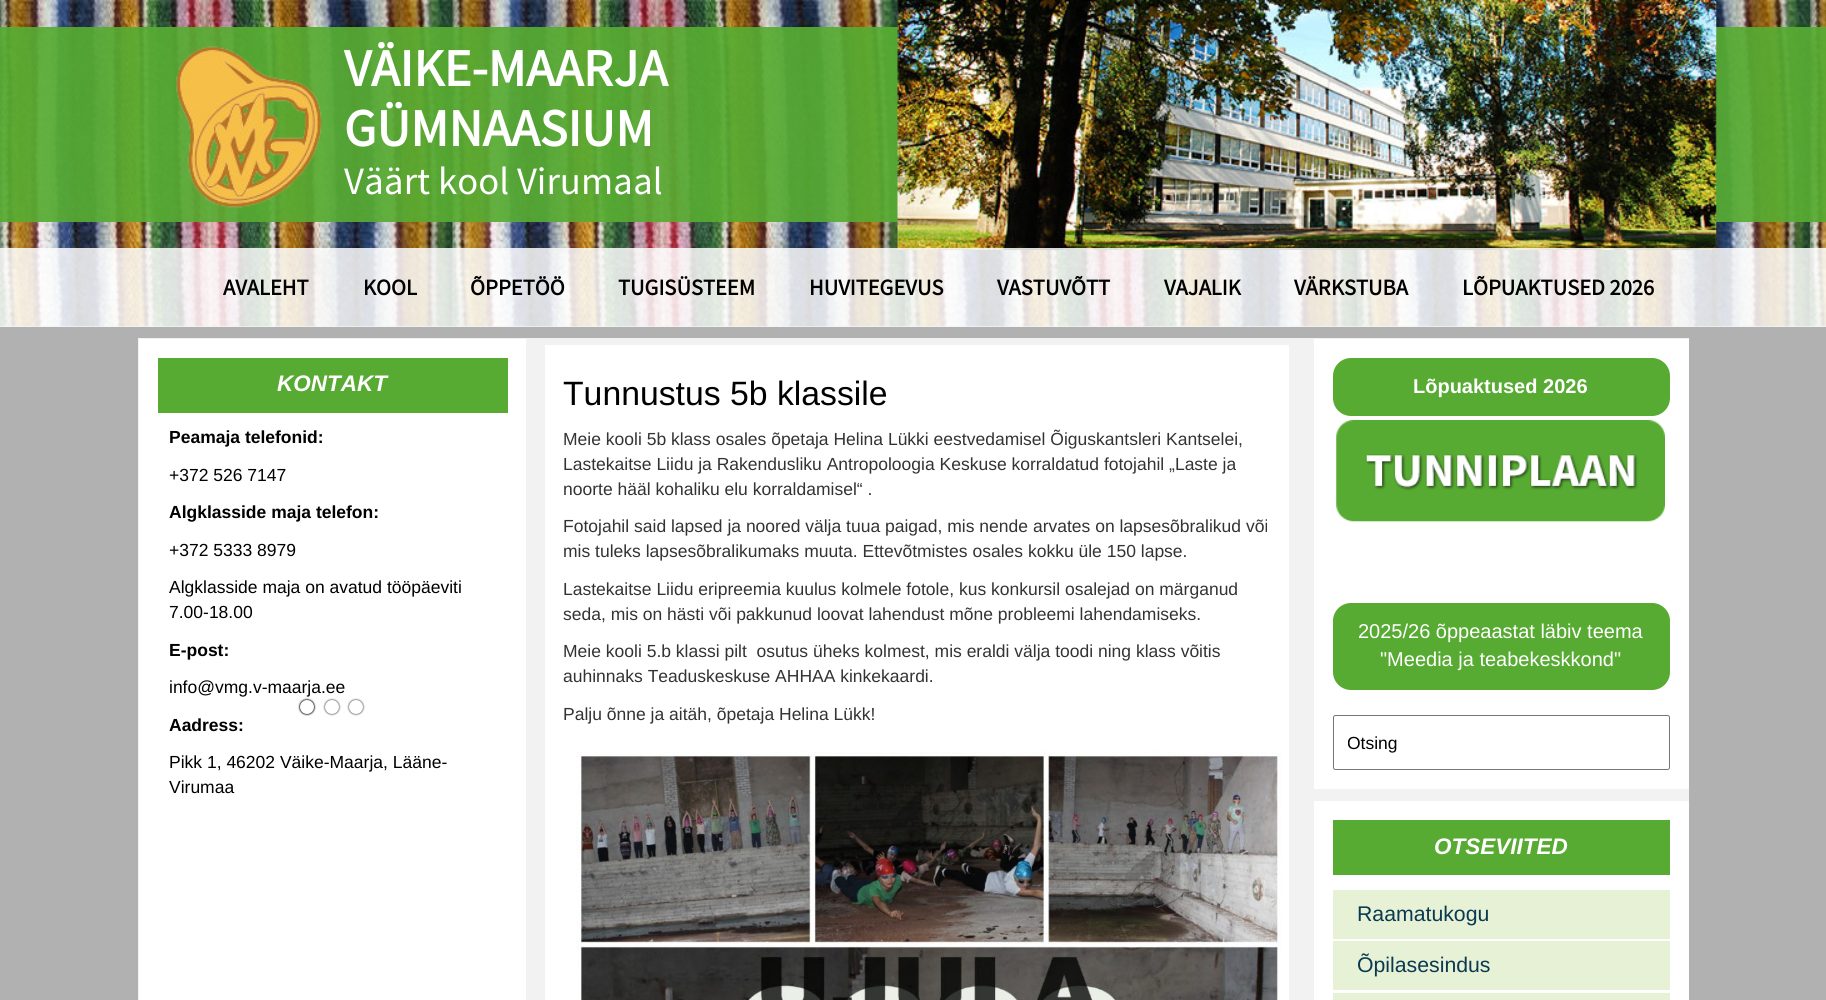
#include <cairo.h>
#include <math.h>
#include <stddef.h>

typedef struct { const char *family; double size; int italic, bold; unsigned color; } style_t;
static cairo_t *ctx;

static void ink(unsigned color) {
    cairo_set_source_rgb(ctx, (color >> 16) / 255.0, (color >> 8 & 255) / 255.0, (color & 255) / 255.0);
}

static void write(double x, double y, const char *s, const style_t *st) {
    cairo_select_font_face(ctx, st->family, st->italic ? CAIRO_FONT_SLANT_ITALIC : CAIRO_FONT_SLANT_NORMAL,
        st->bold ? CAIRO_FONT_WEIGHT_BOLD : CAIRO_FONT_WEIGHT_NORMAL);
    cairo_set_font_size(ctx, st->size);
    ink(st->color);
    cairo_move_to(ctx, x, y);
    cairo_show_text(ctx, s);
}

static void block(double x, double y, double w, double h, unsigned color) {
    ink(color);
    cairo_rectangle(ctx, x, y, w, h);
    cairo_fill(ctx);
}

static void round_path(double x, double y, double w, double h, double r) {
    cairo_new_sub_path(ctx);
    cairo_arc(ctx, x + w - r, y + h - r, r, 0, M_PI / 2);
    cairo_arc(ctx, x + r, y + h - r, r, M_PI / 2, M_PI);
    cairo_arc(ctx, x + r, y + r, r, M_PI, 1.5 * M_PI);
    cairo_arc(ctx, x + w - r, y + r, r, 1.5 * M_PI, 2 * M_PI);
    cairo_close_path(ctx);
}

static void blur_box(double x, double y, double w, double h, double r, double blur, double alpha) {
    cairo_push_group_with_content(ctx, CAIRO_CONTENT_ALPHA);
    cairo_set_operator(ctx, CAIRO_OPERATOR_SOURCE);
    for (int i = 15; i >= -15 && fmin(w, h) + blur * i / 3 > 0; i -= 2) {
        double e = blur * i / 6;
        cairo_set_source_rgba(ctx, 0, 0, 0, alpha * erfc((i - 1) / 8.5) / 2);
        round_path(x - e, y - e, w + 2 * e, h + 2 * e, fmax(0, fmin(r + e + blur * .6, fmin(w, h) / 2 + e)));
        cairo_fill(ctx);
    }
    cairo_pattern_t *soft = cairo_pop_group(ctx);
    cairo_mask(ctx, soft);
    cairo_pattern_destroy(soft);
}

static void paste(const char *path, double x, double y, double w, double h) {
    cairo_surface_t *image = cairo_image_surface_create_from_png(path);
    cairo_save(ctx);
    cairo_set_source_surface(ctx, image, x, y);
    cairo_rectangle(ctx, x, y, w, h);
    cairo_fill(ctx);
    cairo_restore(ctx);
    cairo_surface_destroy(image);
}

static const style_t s1 = {"Source Sans Pro", 52.5, 0, 1, 0xffffff};
static const style_t s2 = {"Source Sans Pro", 38.75, 0, 0, 0xffffff};
static const style_t s3 = {"Source Sans Pro", 22.5, 0, 1, 0x000000};
static const style_t s4 = {"Liberation Sans", 22.5, 1, 1, 0xffffff};
static const style_t s5 = {"Liberation Sans", 17.5, 0, 1, 0x000000};
static const style_t s6 = {"Liberation Sans", 17.5, 0, 0, 0x000000};
static const style_t s7 = {"Liberation Sans", 33.75, 0, 0, 0x000000};
static const style_t s8 = {"Liberation Sans", 17.5, 0, 0, 0x333333};
static const style_t s9 = {"Liberation Sans", 20, 0, 1, 0xffffff};
static const style_t s10 = {"Liberation Sans", 20, 0, 0, 0xffffff};
static const style_t s11 = {"Liberation Sans", 21.25, 0, 0, 0x0b3950};

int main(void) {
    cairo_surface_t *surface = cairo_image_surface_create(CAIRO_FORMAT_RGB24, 1826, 1000);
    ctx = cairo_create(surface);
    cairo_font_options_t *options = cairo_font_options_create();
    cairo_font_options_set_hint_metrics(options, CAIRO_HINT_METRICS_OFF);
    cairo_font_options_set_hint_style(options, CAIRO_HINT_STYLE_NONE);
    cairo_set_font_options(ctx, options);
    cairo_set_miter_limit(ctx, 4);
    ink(0xb1b1b1);
    cairo_paint(ctx);
    paste("pic1.png", 0, 0, 1826, 327);
    cairo_set_source_rgba(ctx, 0.341, 0.671, 0.196, 0.92);
    cairo_rectangle(ctx, 0, 27, 1826, 195);
    cairo_fill(ctx);
    paste("pic2.png", 176, 46, 146, 162);
    write(344, 86, "VÄIKE-MAARJA", &s1);
    write(344, 146, "GÜMNAASIUM", &s1);
    write(344, 194, "Väärt kool Virumaal", &s2);
    paste("pic3.png", 897, 0, 820, 250);
    cairo_set_source_rgba(ctx, 1, 1, 1, 0.84);
    cairo_rectangle(ctx, 0, 248, 1826, 79);
    cairo_fill(ctx);
    write(223, 295, "AVALEHT", &s3);
    write(363, 295, "KOOL", &s3);
    write(470, 295, "ÕPPETÖÖ", &s3);
    write(618, 295, "TUGISÜSTEEM", &s3);
    write(809, 295, "HUVITEGEVUS", &s3);
    write(997, 295, "VASTUVÕTT", &s3);
    write(1164, 295, "VAJALIK", &s3);
    write(1294, 295, "VÄRKSTUBA", &s3);
    write(1462, 295, "LÕPUAKTUSED 2026", &s3);
    block(138, 338, 1551, 662, 0xf2f2f2);
    block(139, 339, 387, 661, 0xffffff);
    block(158, 358, 350, 55, 0x57ab32);
    write(277, 391, "KONTAKT", &s4);
    write(169, 443, "Peamaja telefonid:", &s5);
    write(169, 481, "+372 526 7147", &s6);
    write(169, 518, "Algklasside maja telefon:", &s5);
    write(169, 556, "+372 5333 8979", &s6);
    write(169, 593, "Algklasside maja on avatud tööpäeviti", &s6);
    write(169, 618, "7.00-18.00", &s6);
    write(169, 656, "E-post:", &s5);
    write(169, 693, "info@vmg.v-maarja.ee", &s6);
    write(169, 731, "Aadress:", &s5);
    write(169, 768, "Pikk 1, 46202 Väike-Maarja, Lääne-", &s6);
    write(169, 793, "Virumaa", &s6);
    ink(0x000000);
    blur_box(300, 700, 14, 14, 7, 1, 1);
    blur_box(300, 700, 14, 14, 7, 1, 1);
    ink(0xffffff);
    cairo_arc(ctx, 307, 707, 7, 0, 2 * M_PI);
    cairo_fill(ctx);
    ink(0x000000);
    blur_box(325, 700, 14, 14, 7, 1, 1);
    ink(0xffffff);
    cairo_arc(ctx, 332, 707, 7, 0, 2 * M_PI);
    cairo_fill(ctx);
    ink(0x000000);
    blur_box(349, 700, 14, 14, 7, 1, 1);
    ink(0xffffff);
    cairo_arc(ctx, 356, 707, 7, 0, 2 * M_PI);
    cairo_fill(ctx);
    block(545, 345, 744, 655, 0xffffff);
    write(563, 405, "Tunnustus 5b klassile", &s7);
    write(563, 445, "Meie kooli 5b klass osales õpetaja Helina Lükki eestvedamisel Õiguskantsleri Kantselei,", &s8);
    write(563, 470, "Lastekaitse Liidu ja Rakendusliku Antropoloogia Keskuse korraldatud fotojahil „Laste ja", &s8);
    write(563, 495, "noorte hääl kohaliku elu korraldamisel“ .", &s8);
    write(563, 532, "Fotojahil said lapsed ja noored välja tuua paigad, mis nende arvates on lapsesõbralikud või", &s8);
    write(563, 557, "mis tuleks lapsesõbralikumaks muuta. Ettevõtmistes osales kokku üle 150 lapse.", &s8);
    write(563, 595, "Lastekaitse Liidu eripreemia kuulus kolmele fotole, kus konkursil osalejad on märganud", &s8);
    write(563, 620, "seda, mis on hästi või pakkunud loovat lahendust mõne probleemi lahendamiseks.", &s8);
    write(563, 657, "Meie kooli 5.b klassi pilt  osutus üheks kolmest, mis eraldi välja toodi ning klass võitis", &s8);
    write(563, 682, "auhinnaks Teaduskeskuse AHHAA kinkekaardi.", &s8);
    write(563, 720, "Palju õnne ja aitäh, õpetaja Helina Lükk!", &s8);
    paste("pic4.png", 576, 751, 706, 249);
    block(1314, 339, 375, 450, 0xffffff);
    ink(0x57ab32);
    round_path(1333, 358, 337, 58, 18);
    cairo_fill(ctx);
    write(1413, 393, "Lõpuaktused 2026", &s9);
    paste("pic5.png", 1336, 420, 329, 102);
    ink(0x57ab32);
    round_path(1333, 603, 337, 87, 18);
    cairo_fill(ctx);
    write(1358, 638, "2025/26 õppeaastat läbiv teema", &s10);
    write(1380, 666, "\"Meedia ja teabekeskkond\"", &s10);
    round_path(1333.5, 715.5, 336, 54, 2);
    ink(0x767676);
    cairo_set_line_width(ctx, 1);
    cairo_stroke(ctx);
    cairo_save(ctx);
    cairo_rectangle(ctx, 1348, 730, 307, 25);
    cairo_clip(ctx);
    write(1347, 749, "Otsing", &s6);
    cairo_restore(ctx);
    block(1314, 801, 375, 199, 0xffffff);
    block(1333, 820, 337, 55, 0x57ab32);
    write(1434, 854, "OTSEVIITED", &s4);
    block(1333, 890, 337, 49, 0xe6f1d6);
    write(1357, 921, "Raamatukogu", &s11);
    block(1333, 941, 337, 49, 0xe6f1d6);
    write(1357, 972, "Õpilasesindus", &s11);
    block(1333, 993, 337, 7, 0xe6f1d6);
    cairo_surface_write_to_png(surface, "screenshot.png");
    cairo_font_options_destroy(options);
    cairo_destroy(ctx);
    cairo_surface_destroy(surface);
    return 0;
}
